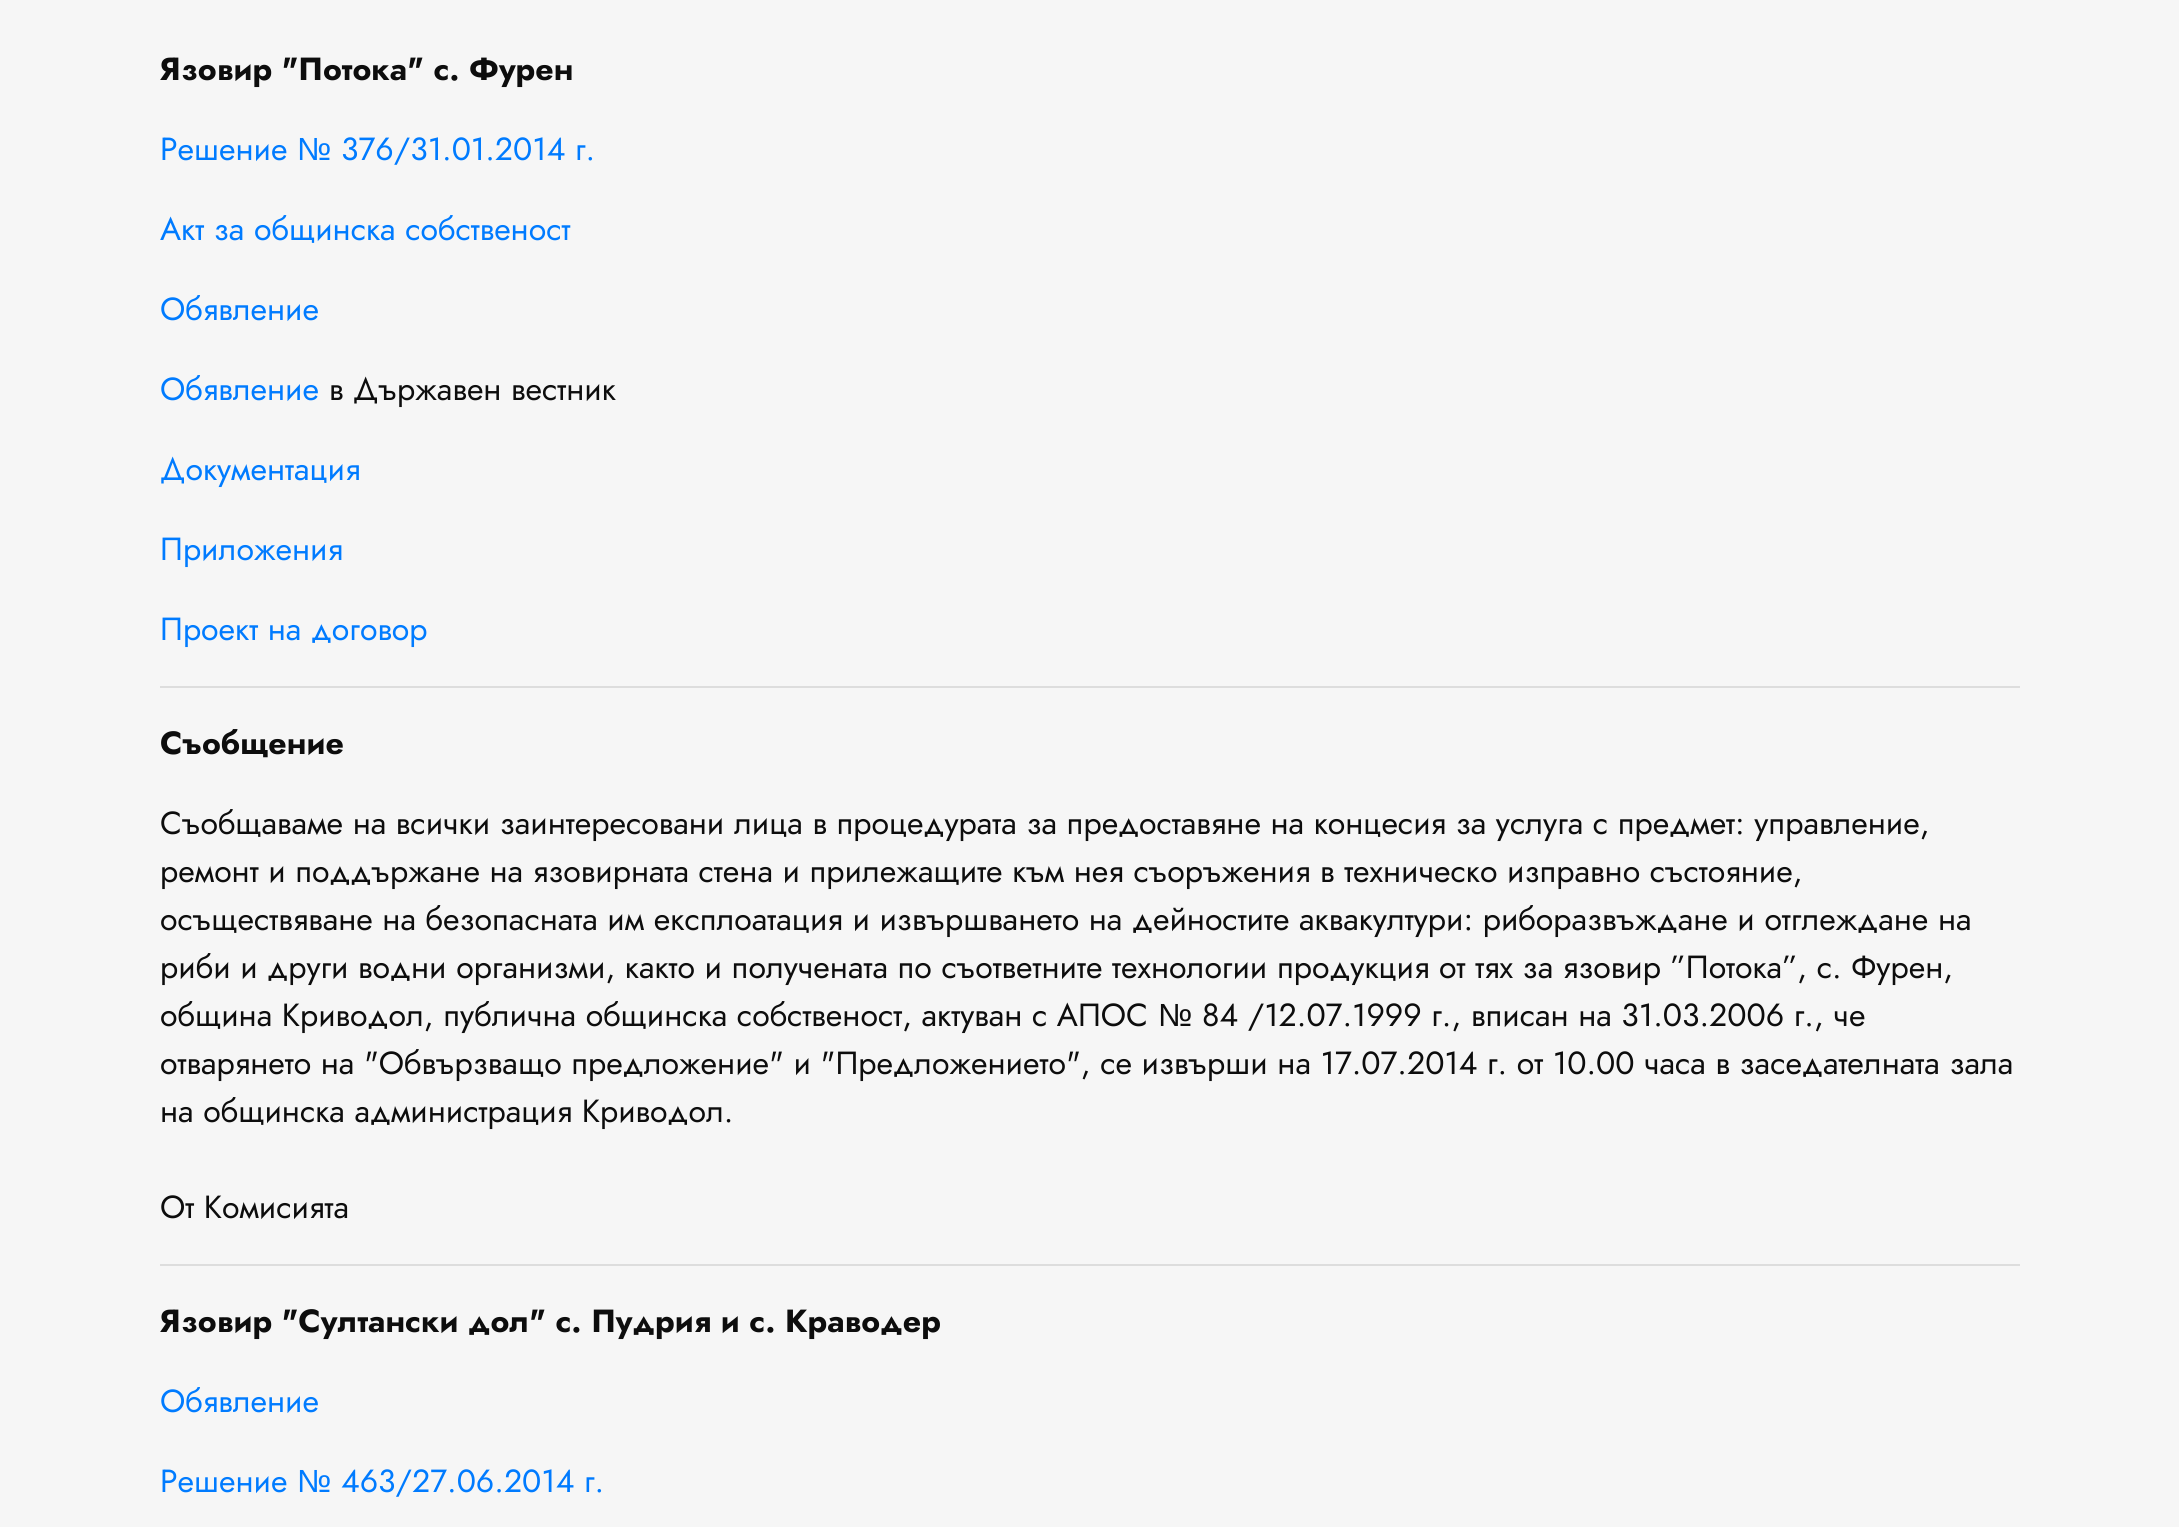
#include <cairo.h>
#include <math.h>
#include <stddef.h>

typedef struct { const char *family; double size; int italic, bold; unsigned color; } style_t;
static cairo_t *ctx;

static void ink(unsigned color) {
    cairo_set_source_rgb(ctx, (color >> 16) / 255.0, (color >> 8 & 255) / 255.0, (color & 255) / 255.0);
}

static void write(double x, double y, const char *s, const style_t *st) {
    cairo_select_font_face(ctx, st->family, st->italic ? CAIRO_FONT_SLANT_ITALIC : CAIRO_FONT_SLANT_NORMAL,
        st->bold ? CAIRO_FONT_WEIGHT_BOLD : CAIRO_FONT_WEIGHT_NORMAL);
    cairo_set_font_size(ctx, st->size);
    ink(st->color);
    cairo_move_to(ctx, x, y);
    cairo_show_text(ctx, s);
}

static void block(double x, double y, double w, double h, unsigned color) {
    ink(color);
    cairo_rectangle(ctx, x, y, w, h);
    cairo_fill(ctx);
}

static const style_t s1 = {"Jost", 32, 0, 1, 0x0d0d0d};
static const style_t s2 = {"Jost", 32, 0, 0, 0x007bff};
static const style_t s3 = {"Liberation Sans", 32, 0, 0, 0x007bff};
static const style_t s4 = {"Jost", 32, 0, 0, 0x0d0d0d};
static const style_t s5 = {"Liberation Sans", 32, 0, 0, 0x0d0d0d};

int main(void) {
    cairo_surface_t *surface = cairo_image_surface_create(CAIRO_FORMAT_RGB24, 2179, 1527);
    ctx = cairo_create(surface);
    cairo_font_options_t *options = cairo_font_options_create();
    cairo_font_options_set_hint_metrics(options, CAIRO_HINT_METRICS_OFF);
    cairo_font_options_set_hint_style(options, CAIRO_HINT_STYLE_NONE);
    cairo_set_font_options(ctx, options);
    cairo_set_miter_limit(ctx, 4);
    ink(0xf6f6f6);
    cairo_paint(ctx);
    write(160, 80, "Язовир \"Потока\" с. Фурен", &s1);
    write(160, 160, "Решение", &s2);
    write(297, 160, "№", &s3);
    write(341, 160, "376/31.01.2014 г.", &s2);
    write(160, 240, "Акт за общинска собственост", &s2);
    write(160, 320, "Обявление", &s2);
    write(160, 400, "Обявление", &s2);
    write(329, 400, "в Държавен вестник", &s4);
    write(160, 480, "Документация", &s2);
    write(160, 560, "Приложения", &s2);
    write(160, 640, "Проект на договор", &s2);
    block(160, 686, 1860, 2, 0xdddddd);
    write(160, 754, "Съобщение", &s1);
    write(160, 834, "Съобщаваме на всички заинтересовани лица в процедурата за предоставяне на концесия за услуга с предмет: управление,", &s4);
    write(160, 882, "ремонт и поддържане на язовирната стена и прилежащите към нея съоръжения в техническо изправно състояние,", &s4);
    write(160, 930, "осъществяване на безопасната им експлоатация и извършването на дейностите аквакултури: риборазвъждане и отглеждане на", &s4);
    write(160, 978, "риби и други водни организми, както и получената по съответните технологии продукция от тях за язовир ”Потока”, с. Фурен,", &s4);
    write(160, 1026, "община Криводол, публична общинска собственост, актуван с АПОС", &s4);
    write(1158, 1026, "№", &s5);
    write(1202, 1026, "84 /12.07.1999 г., вписан на 31.03.2006 г., че", &s4);
    write(160, 1074, "отварянето на \"Обвързващо предложение\" и \"Предложението\", се извърши на 17.07.2014 г. от 10.00 часа в заседателната зала", &s4);
    write(160, 1122, "на общинска администрация Криводол.", &s4);
    write(160, 1218, "От Комисията", &s4);
    block(160, 1264, 1860, 2, 0xdddddd);
    write(160, 1332, "Язовир \"Султански дол\" с. Пудрия и с. Краводер", &s1);
    write(160, 1412, "Обявление", &s2);
    write(160, 1492, "Решение", &s2);
    write(297, 1492, "№", &s3);
    write(341, 1492, "463/27.06.2014 г.", &s2);
    cairo_surface_write_to_png(surface, "screenshot.png");
    cairo_font_options_destroy(options);
    cairo_destroy(ctx);
    cairo_surface_destroy(surface);
    return 0;
}
